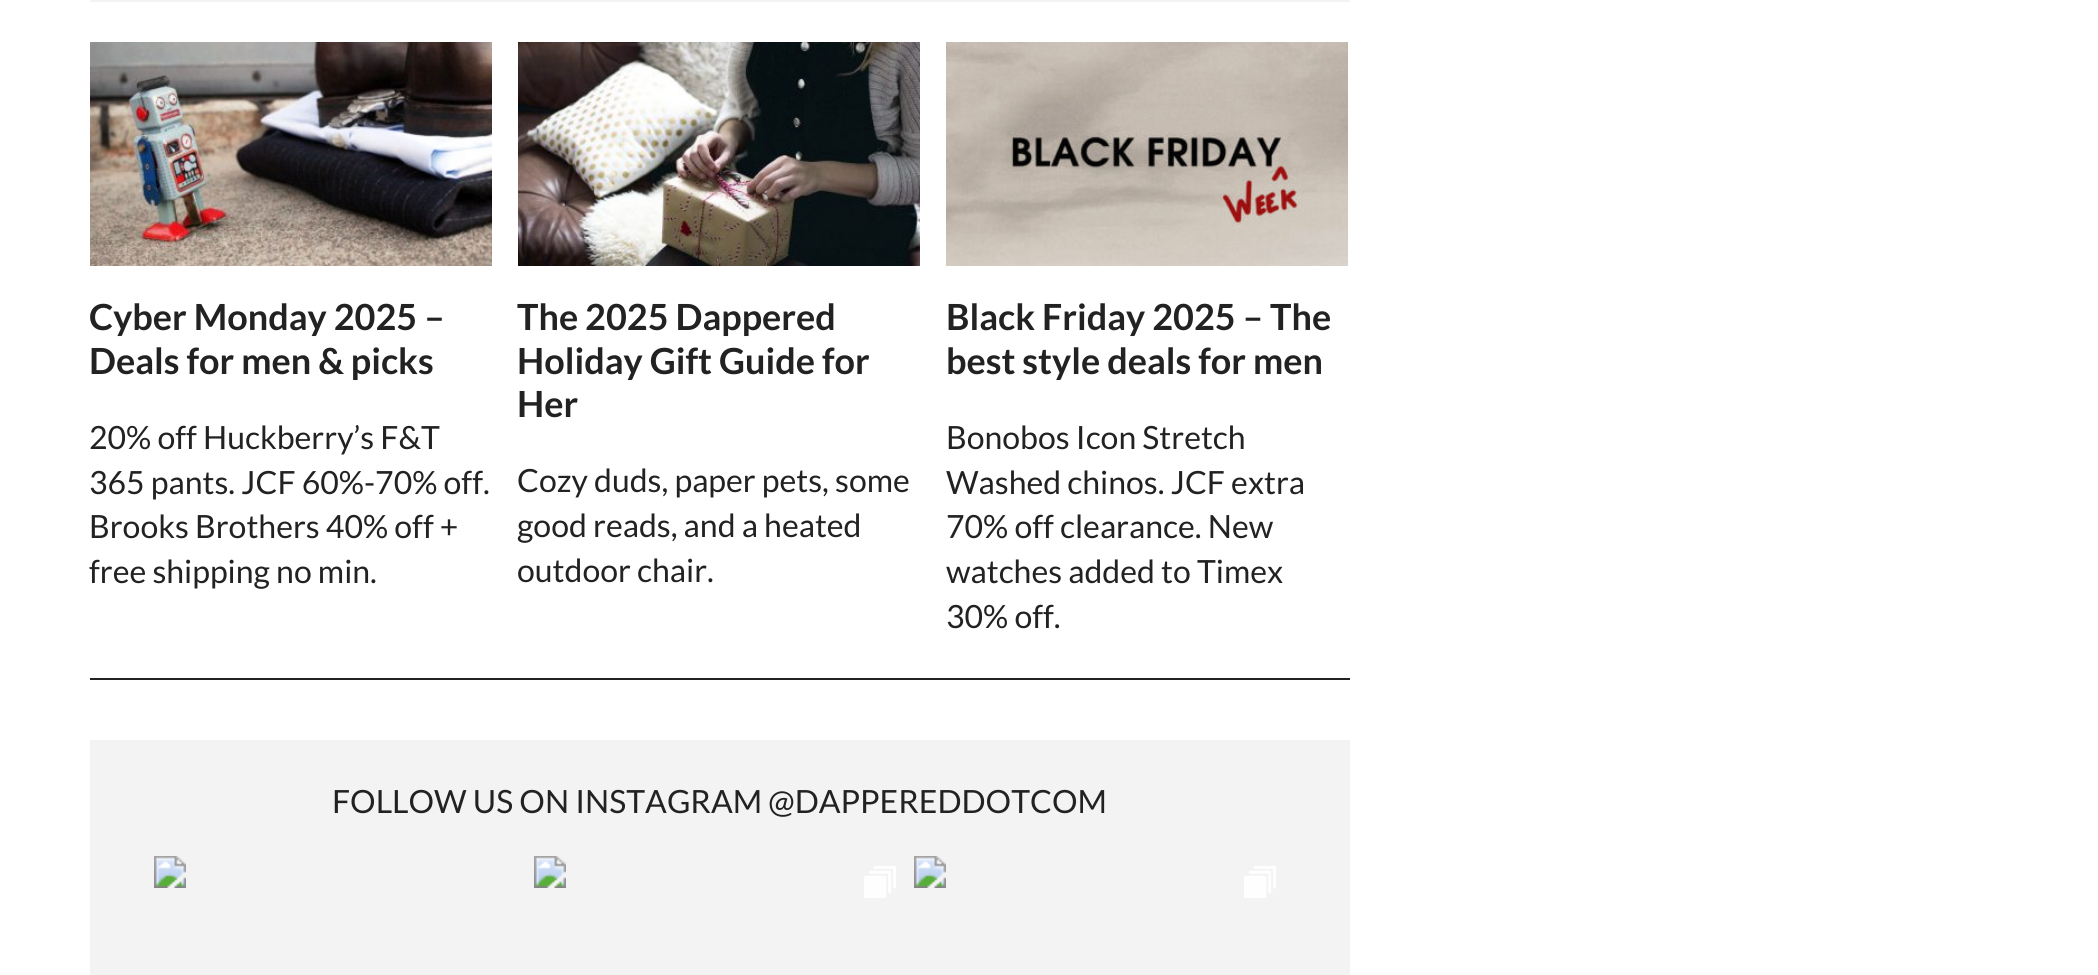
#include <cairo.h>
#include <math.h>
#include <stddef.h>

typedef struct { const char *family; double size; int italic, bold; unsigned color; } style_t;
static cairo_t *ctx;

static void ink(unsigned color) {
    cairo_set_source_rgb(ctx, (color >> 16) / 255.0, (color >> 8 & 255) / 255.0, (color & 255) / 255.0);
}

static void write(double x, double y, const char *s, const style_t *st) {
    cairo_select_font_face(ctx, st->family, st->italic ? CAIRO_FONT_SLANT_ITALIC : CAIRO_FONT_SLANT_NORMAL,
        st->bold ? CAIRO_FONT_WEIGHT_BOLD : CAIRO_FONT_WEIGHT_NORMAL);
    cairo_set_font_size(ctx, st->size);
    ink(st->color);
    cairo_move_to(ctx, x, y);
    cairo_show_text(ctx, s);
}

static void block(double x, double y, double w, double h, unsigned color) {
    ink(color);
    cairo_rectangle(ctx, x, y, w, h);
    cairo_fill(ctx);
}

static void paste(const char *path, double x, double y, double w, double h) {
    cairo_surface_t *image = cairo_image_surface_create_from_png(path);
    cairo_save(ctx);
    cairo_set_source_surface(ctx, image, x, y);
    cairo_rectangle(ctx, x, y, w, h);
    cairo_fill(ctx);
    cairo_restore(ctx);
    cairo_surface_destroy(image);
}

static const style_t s1 = {"Lato", 36, 0, 1, 0x222222};
static const style_t s2 = {"Lato", 32, 0, 0, 0x222222};

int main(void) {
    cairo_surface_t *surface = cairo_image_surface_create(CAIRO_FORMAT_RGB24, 2098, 975);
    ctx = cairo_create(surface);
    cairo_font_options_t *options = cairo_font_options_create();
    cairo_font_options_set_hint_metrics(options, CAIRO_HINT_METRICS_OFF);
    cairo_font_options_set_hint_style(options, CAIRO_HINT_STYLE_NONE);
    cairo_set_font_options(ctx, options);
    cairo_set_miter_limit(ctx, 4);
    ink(0xffffff);
    cairo_paint(ctx);
    block(90, 0, 1260, 2, 0xf3f3f3);
    block(90, 678, 1260, 2, 0x222222);
    paste("pic1.png", 90, 42, 402, 224);
    write(89, 330, "Cyber Monday 2025 –", &s1);
    write(89, 374, "Deals for men & picks", &s1);
    write(89, 449, "20% off Huckberry’s F&T", &s2);
    write(89, 494, "365 pants. JCF 60%-70% off.", &s2);
    write(89, 538, "Brooks Brothers 40% off +", &s2);
    write(89, 583, "free shipping no min.", &s2);
    paste("pic2.png", 518, 42, 402, 224);
    write(517, 330, "The 2025 Dappered", &s1);
    write(517, 374, "Holiday Gift Guide for", &s1);
    write(517, 417, "Her", &s1);
    write(517, 492, "Cozy duds, paper pets, some", &s2);
    write(517, 537, "good reads, and a heated", &s2);
    write(517, 582, "outdoor chair.", &s2);
    paste("pic3.png", 946, 42, 402, 224);
    write(946, 330, "Black Friday 2025 – The", &s1);
    write(946, 374, "best style deals for men", &s1);
    write(946, 449, "Bonobos Icon Stretch", &s2);
    write(946, 494, "Washed chinos. JCF extra", &s2);
    write(946, 538, "70% off clearance. New", &s2);
    write(946, 583, "watches added to Timex", &s2);
    write(946, 628, "30% off.", &s2);
    block(90, 740, 1260, 235, 0xf3f3f3);
    write(332, 813, "FOLLOW US ON INSTAGRAM @DAPPEREDDOTCOM", &s2);
    paste("pic4.png", 154, 856, 1122, 42);
    cairo_surface_write_to_png(surface, "screenshot.png");
    cairo_font_options_destroy(options);
    cairo_destroy(ctx);
    cairo_surface_destroy(surface);
    return 0;
}
